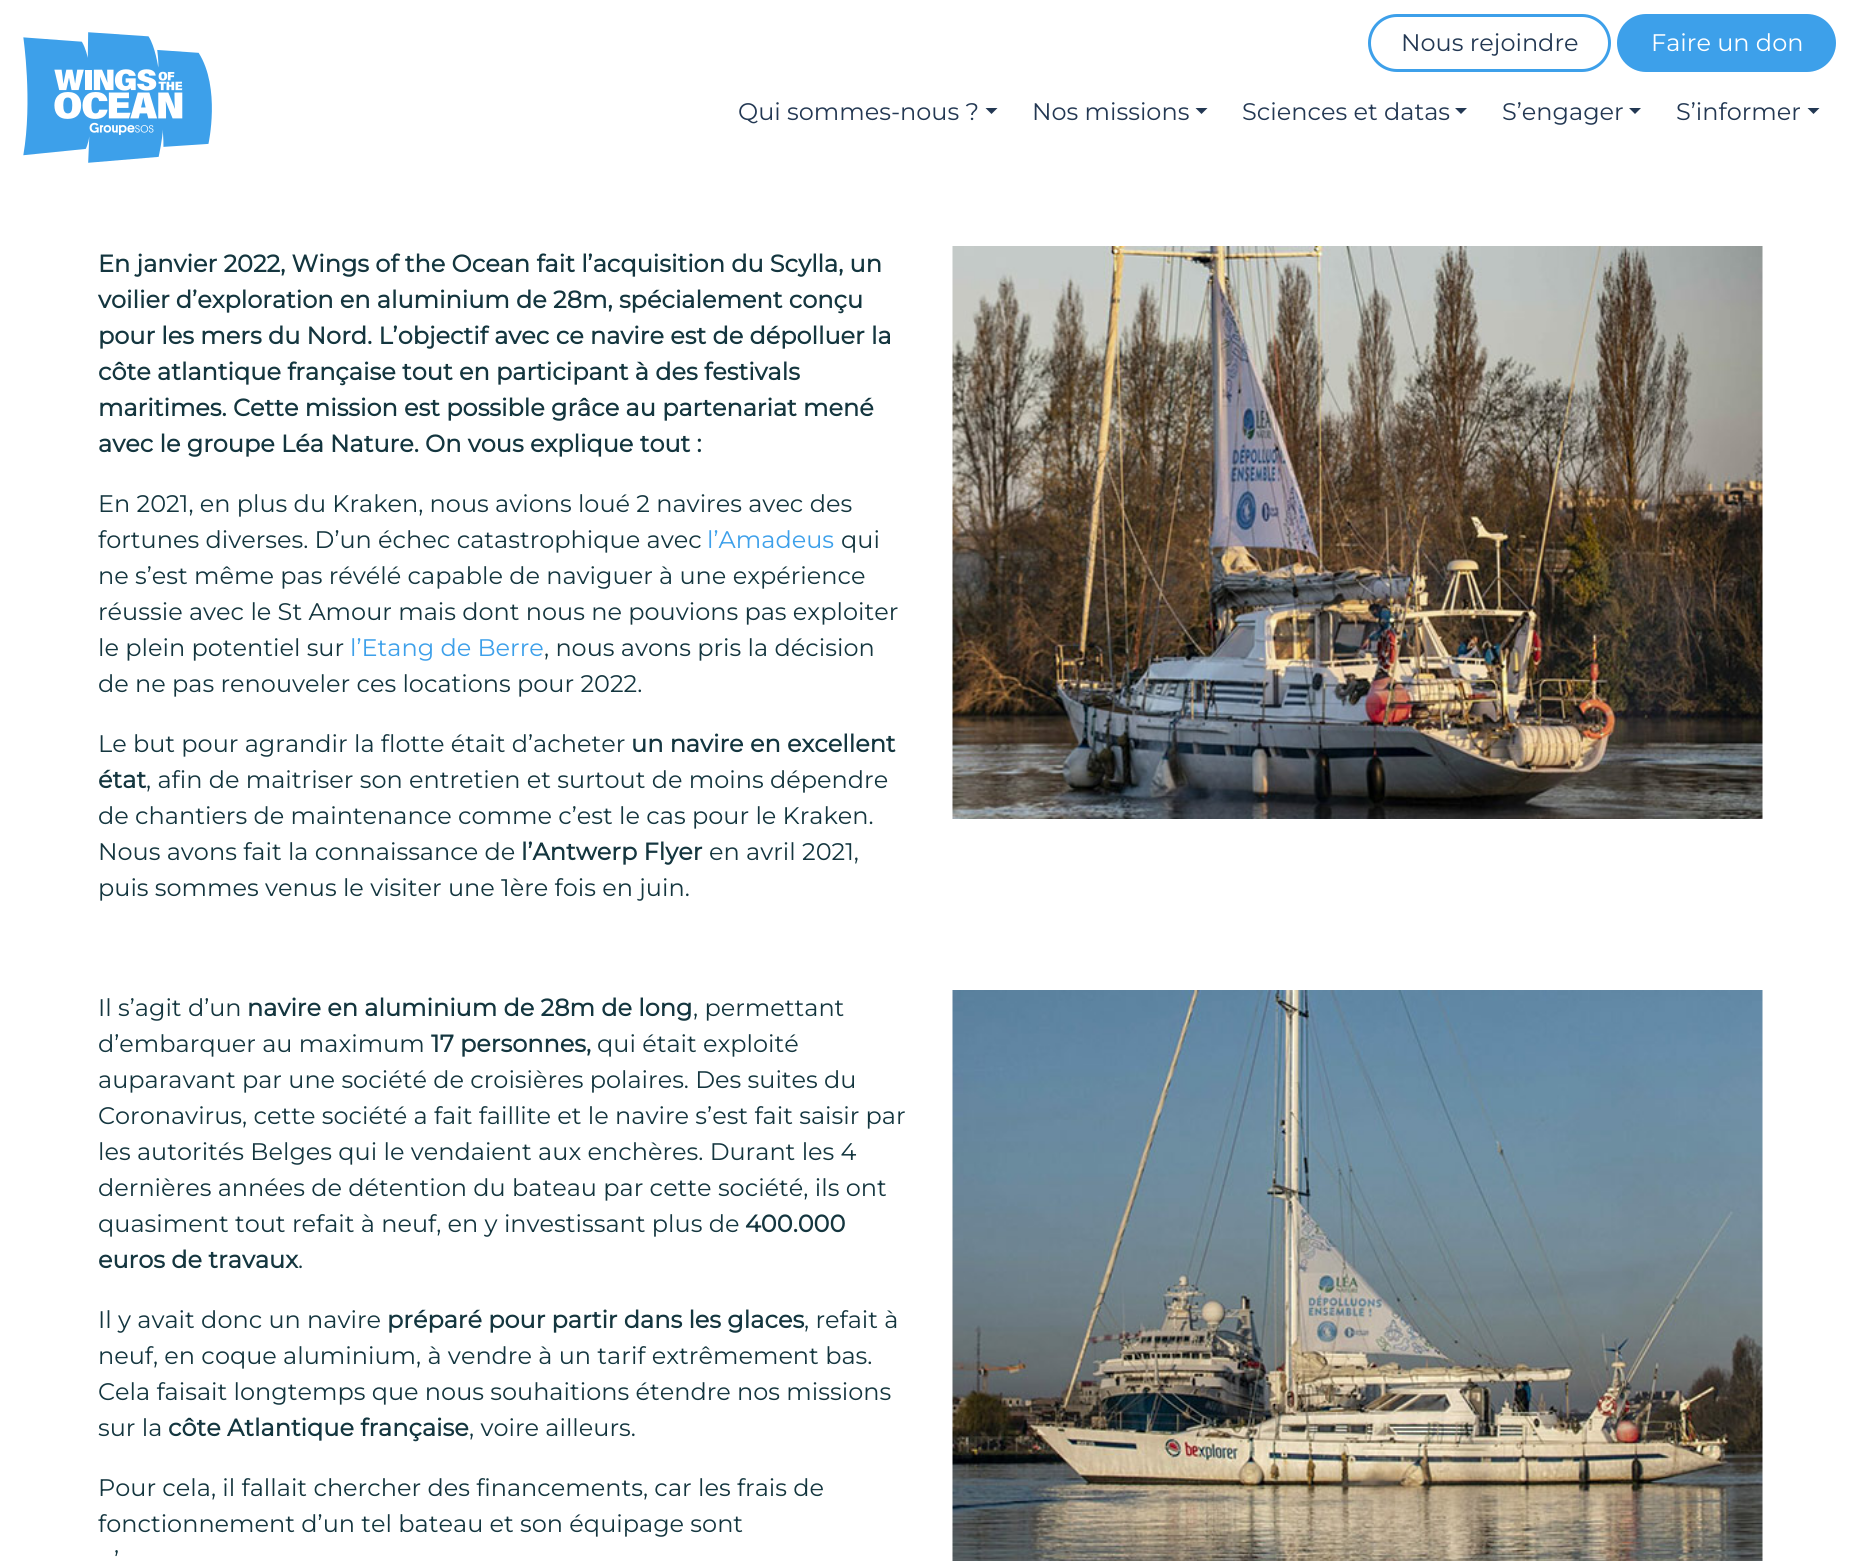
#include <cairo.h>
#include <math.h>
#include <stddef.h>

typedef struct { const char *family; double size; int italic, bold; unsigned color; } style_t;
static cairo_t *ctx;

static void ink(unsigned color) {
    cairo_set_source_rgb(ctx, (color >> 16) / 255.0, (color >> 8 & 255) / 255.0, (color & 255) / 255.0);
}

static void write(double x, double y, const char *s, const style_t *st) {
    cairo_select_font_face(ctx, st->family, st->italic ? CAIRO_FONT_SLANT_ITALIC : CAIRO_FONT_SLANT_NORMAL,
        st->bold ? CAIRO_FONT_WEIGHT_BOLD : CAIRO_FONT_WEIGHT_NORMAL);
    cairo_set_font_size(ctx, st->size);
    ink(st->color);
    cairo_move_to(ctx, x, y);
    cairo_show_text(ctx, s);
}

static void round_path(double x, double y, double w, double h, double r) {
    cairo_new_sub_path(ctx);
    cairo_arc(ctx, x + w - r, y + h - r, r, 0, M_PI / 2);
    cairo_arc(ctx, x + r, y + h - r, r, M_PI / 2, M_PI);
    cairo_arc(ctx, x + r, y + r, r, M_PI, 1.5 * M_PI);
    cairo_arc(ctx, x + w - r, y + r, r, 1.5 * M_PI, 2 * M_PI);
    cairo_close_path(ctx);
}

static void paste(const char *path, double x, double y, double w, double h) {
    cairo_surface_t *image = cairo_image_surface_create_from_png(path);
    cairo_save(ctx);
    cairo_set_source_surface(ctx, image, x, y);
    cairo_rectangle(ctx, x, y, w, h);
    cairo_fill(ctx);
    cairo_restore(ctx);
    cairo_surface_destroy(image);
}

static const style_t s1 = {"Montserrat Thin", 24, 0, 0, 0x233853};
static const style_t s2 = {"Montserrat Thin", 24, 0, 0, 0xffffff};
static const style_t s3 = {"Montserrat", 24, 0, 1, 0x14363f};
static const style_t s4 = {"Montserrat Thin", 24, 0, 0, 0x14363f};
static const style_t s5 = {"Montserrat Thin", 24, 0, 0, 0x3da0ea};

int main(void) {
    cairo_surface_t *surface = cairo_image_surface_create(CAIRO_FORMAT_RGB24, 1859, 1561);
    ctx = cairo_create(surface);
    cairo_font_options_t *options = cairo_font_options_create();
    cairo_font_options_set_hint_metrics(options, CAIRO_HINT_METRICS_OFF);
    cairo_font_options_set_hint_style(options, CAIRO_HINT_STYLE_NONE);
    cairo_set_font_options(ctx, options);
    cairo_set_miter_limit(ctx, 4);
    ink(0xffffff);
    cairo_paint(ctx);
    paste("pic1.png", 23, 32, 189, 131);
    round_path(1369.5, 15.5, 240, 55, 27.5);
    ink(0x3da0ea);
    cairo_set_line_width(ctx, 3);
    cairo_stroke(ctx);
    write(1401, 51, "Nous rejoindre", &s1);
    ink(0x3da0ea);
    round_path(1618.5, 15.5, 216, 55, 27.5);
    cairo_fill_preserve(ctx);
    cairo_stroke(ctx);
    write(1651, 51, "Faire un don", &s2);
    write(738, 120, "Qui sommes-nous ?", &s1);
    cairo_new_path(ctx);
    cairo_move_to(ctx, 985.5, 108);
    cairo_line_to(ctx, 997.5, 108);
    cairo_line_to(ctx, 991.5, 114);
    cairo_close_path(ctx);
    cairo_fill(ctx);
    write(1032, 120, "Nos missions", &s1);
    cairo_new_path(ctx);
    cairo_move_to(ctx, 1195.5, 108);
    cairo_line_to(ctx, 1207.5, 108);
    cairo_line_to(ctx, 1201.5, 114);
    cairo_close_path(ctx);
    cairo_fill(ctx);
    write(1242, 120, "Sciences et datas", &s1);
    cairo_new_path(ctx);
    cairo_move_to(ctx, 1455, 108);
    cairo_line_to(ctx, 1467, 108);
    cairo_line_to(ctx, 1461, 114);
    cairo_close_path(ctx);
    cairo_fill(ctx);
    write(1502, 120, "S’engager", &s1);
    cairo_new_path(ctx);
    cairo_move_to(ctx, 1629, 108);
    cairo_line_to(ctx, 1641, 108);
    cairo_line_to(ctx, 1635, 114);
    cairo_close_path(ctx);
    cairo_fill(ctx);
    write(1676, 120, "S’informer", &s1);
    cairo_new_path(ctx);
    cairo_move_to(ctx, 1807.5, 108);
    cairo_line_to(ctx, 1819.5, 108);
    cairo_line_to(ctx, 1813.5, 114);
    cairo_close_path(ctx);
    cairo_fill(ctx);
    write(98, 272, "En janvier 2022, Wings of the Ocean fait l’acquisition du Scylla, un", &s3);
    write(98, 308, "voilier d’exploration en aluminium de 28m, spécialement conçu", &s3);
    write(98, 344, "pour les mers du Nord. L’objectif avec ce navire est de dépolluer la", &s3);
    write(98, 380, "côte atlantique française tout en participant à des festivals", &s3);
    write(98, 416, "maritimes. Cette mission est possible grâce au partenariat mené", &s3);
    write(98, 452, "avec le groupe Léa Nature. On vous explique tout :", &s3);
    write(98, 512, "En 2021, en plus du Kraken, nous avions loué 2 navires avec des", &s4);
    write(98, 548, "fortunes diverses. D’un échec catastrophique avec", &s4);
    write(707, 548, "l’Amadeus", &s5);
    write(841, 548, "qui", &s4);
    write(98, 584, "ne s’est même pas révélé capable de naviguer à une expérience", &s4);
    write(98, 620, "réussie avec le St Amour mais dont nous ne pouvions pas exploiter", &s4);
    write(98, 656, "le plein potentiel sur", &s4);
    write(350, 656, "l’Etang de Berre", &s5);
    write(544, 656, ", nous avons pris la décision", &s4);
    write(98, 692, "de ne pas renouveler ces locations pour 2022.", &s4);
    write(98, 752, "Le but pour agrandir la flotte était d’acheter", &s4);
    write(631, 752, "un navire en excellent", &s3);
    write(98, 788, "état", &s3);
    write(146, 788, ", afin de maitriser son entretien et surtout de moins dépendre", &s4);
    write(98, 824, "de chantiers de maintenance comme c’est le cas pour le Kraken.", &s4);
    write(98, 860, "Nous avons fait la connaissance de", &s4);
    write(521, 860, "l’Antwerp Flyer", &s3);
    write(709, 860, "en avril 2021,", &s4);
    write(98, 896, "puis sommes venus le visiter une 1ère fois en juin.", &s4);
    paste("pic2.png", 952, 246, 811, 573);
    write(98, 1016, "Il s’agit d’un", &s4);
    write(247, 1016, "navire en aluminium de 28m de long", &s3);
    write(693, 1016, ", permettant", &s4);
    write(98, 1052, "d’embarquer au maximum", &s4);
    write(431, 1052, "17 personnes,", &s3);
    write(597, 1052, "qui était exploité", &s4);
    write(98, 1088, "auparavant par une société de croisières polaires. Des suites du", &s4);
    write(98, 1124, "Coronavirus, cette société a fait faillite et le navire s’est fait saisir par", &s4);
    write(98, 1160, "les autorités Belges qui le vendaient aux enchères. Durant les 4", &s4);
    write(98, 1196, "dernières années de détention du bateau par cette société, ils ont", &s4);
    write(98, 1232, "quasiment tout refait à neuf, en y investissant plus de", &s4);
    write(745, 1232, "400.000", &s3);
    write(98, 1268, "euros de travaux", &s3);
    write(298, 1268, ".", &s4);
    write(98, 1328, "Il y avait donc un navire", &s4);
    write(387, 1328, "préparé pour partir dans les glaces", &s3);
    write(804, 1328, ", refait à", &s4);
    write(98, 1364, "neuf, en coque aluminium, à vendre à un tarif extrêmement bas.", &s4);
    write(98, 1400, "Cela faisait longtemps que nous souhaitions étendre nos missions", &s4);
    write(98, 1436, "sur la", &s4);
    write(168, 1436, "côte Atlantique française", &s3);
    write(469, 1436, ", voire ailleurs.", &s4);
    write(98, 1496, "Pour cela, il fallait chercher des financements, car les frais de", &s4);
    write(98, 1532, "fonctionnement d’un tel bateau et son équipage sont", &s4);
    write(114, 1568, "’", &s4);
    paste("pic3.png", 952, 990, 811, 571);
    cairo_surface_write_to_png(surface, "screenshot.png");
    cairo_font_options_destroy(options);
    cairo_destroy(ctx);
    cairo_surface_destroy(surface);
    return 0;
}
